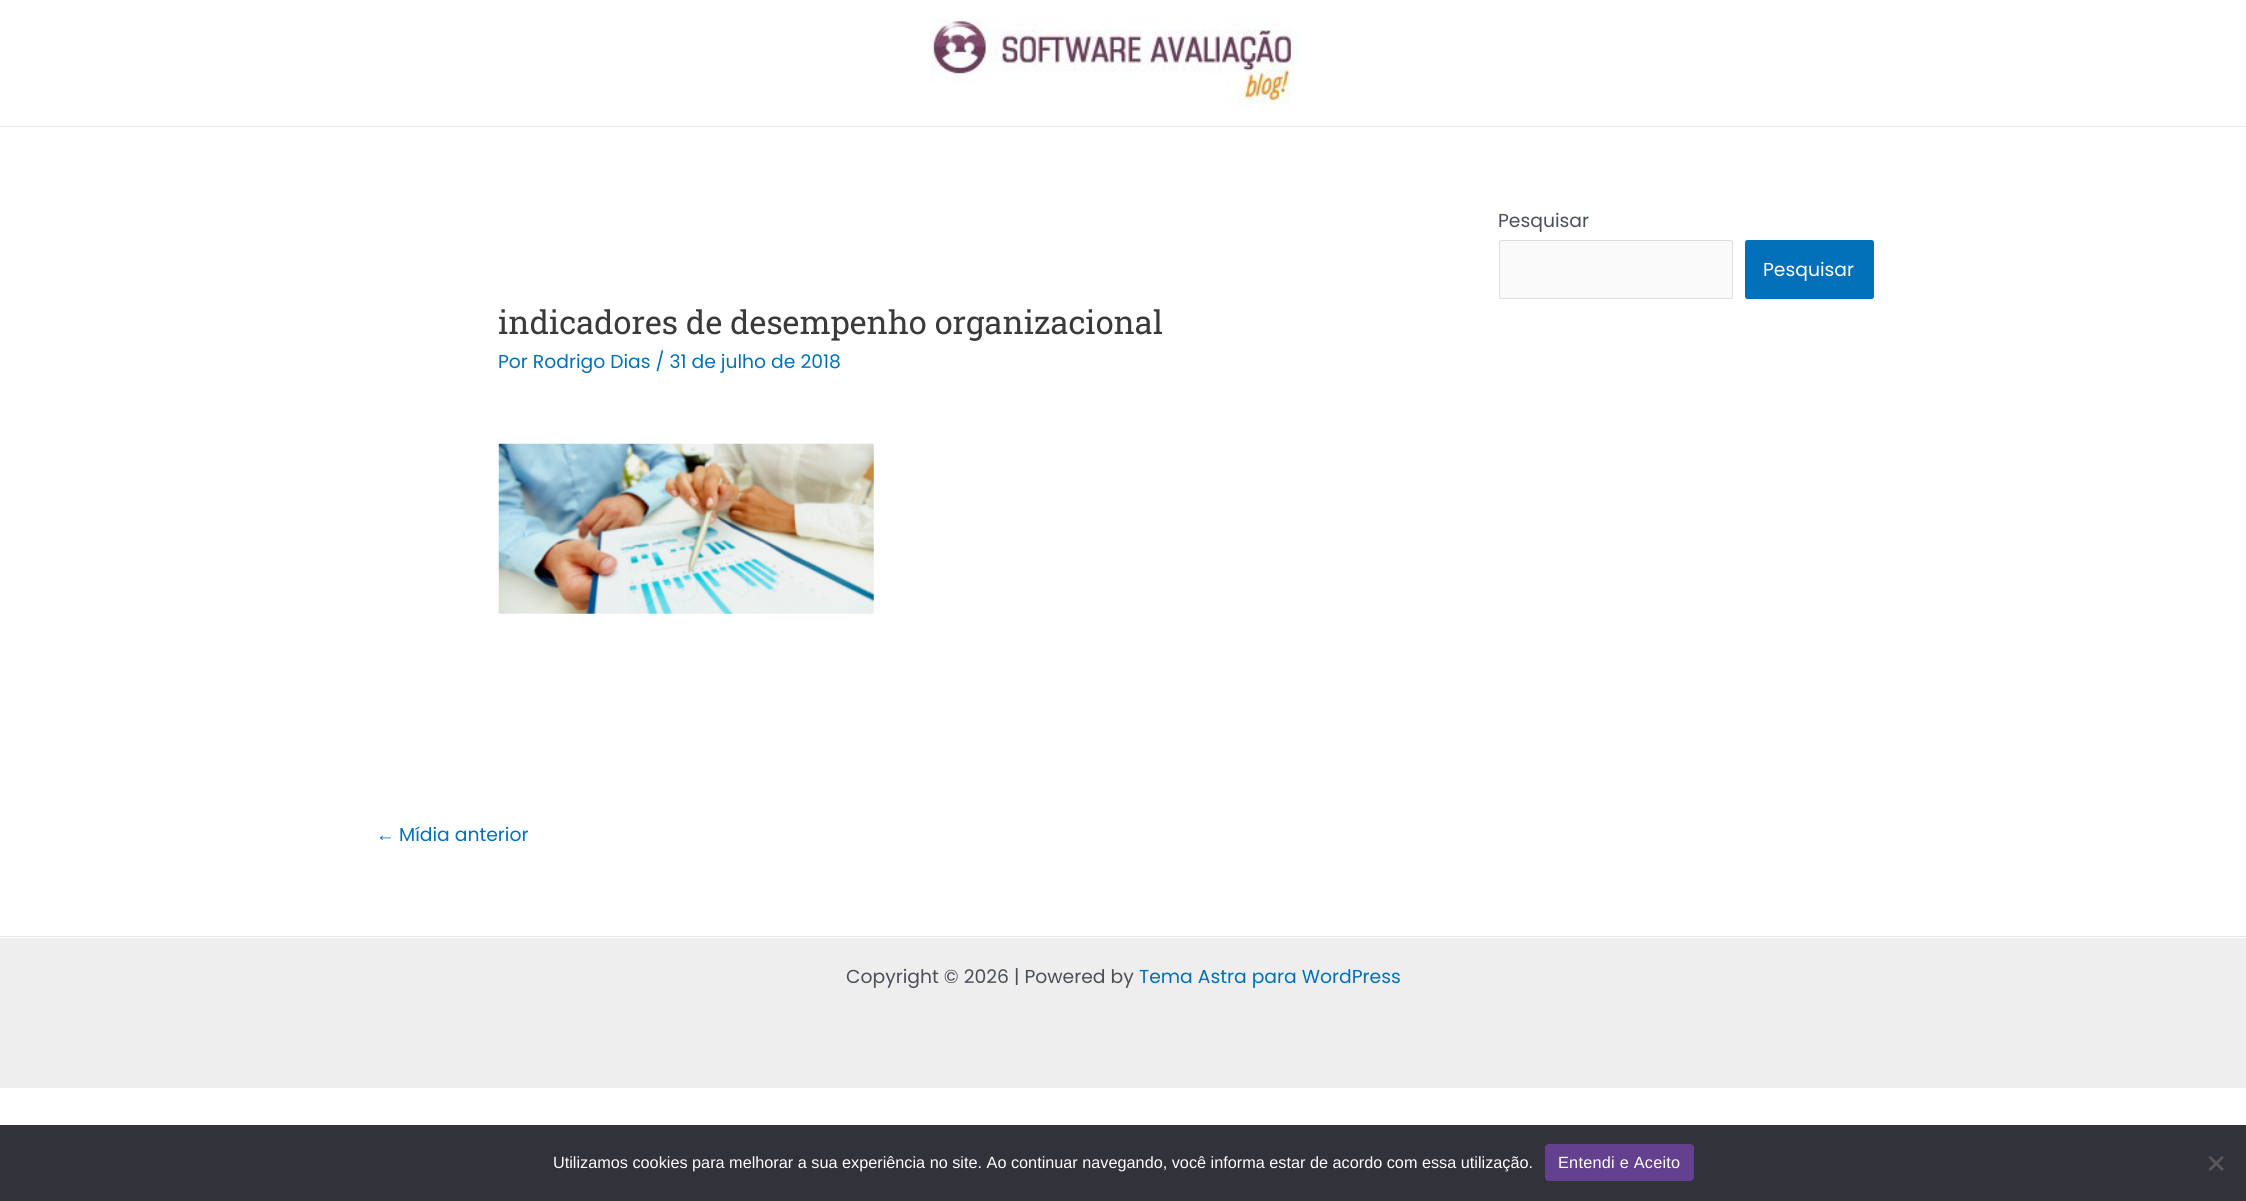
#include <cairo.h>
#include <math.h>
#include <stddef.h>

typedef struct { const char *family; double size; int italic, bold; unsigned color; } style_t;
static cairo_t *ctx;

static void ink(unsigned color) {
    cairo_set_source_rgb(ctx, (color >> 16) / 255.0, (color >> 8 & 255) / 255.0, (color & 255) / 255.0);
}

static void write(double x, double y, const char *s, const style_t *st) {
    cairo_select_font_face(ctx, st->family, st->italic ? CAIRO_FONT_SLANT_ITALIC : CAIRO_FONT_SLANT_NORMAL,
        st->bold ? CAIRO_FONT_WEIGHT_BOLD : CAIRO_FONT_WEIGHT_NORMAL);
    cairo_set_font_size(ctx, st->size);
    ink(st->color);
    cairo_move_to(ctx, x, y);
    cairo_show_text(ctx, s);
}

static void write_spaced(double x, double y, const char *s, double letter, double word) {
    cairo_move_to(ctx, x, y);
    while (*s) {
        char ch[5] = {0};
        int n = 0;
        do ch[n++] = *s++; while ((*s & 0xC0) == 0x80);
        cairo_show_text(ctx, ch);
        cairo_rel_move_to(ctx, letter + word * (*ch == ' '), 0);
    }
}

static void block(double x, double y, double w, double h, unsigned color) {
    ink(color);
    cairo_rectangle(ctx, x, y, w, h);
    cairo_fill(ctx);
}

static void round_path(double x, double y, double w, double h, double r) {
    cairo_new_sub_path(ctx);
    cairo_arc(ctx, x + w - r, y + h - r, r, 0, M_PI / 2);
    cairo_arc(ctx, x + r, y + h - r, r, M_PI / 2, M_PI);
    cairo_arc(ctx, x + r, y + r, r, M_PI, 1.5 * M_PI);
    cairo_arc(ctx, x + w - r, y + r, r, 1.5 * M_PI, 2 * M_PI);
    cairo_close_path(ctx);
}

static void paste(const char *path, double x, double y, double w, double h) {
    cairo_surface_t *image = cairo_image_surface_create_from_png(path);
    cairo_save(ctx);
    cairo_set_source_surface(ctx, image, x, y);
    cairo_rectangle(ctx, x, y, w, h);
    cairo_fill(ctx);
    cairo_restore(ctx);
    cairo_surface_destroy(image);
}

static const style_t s1 = {"Poppins", 18.75, 0, 0, 0x4b4f58};
static const style_t s2 = {"Poppins", 18.75, 0, 0, 0xffffff};
static const style_t s3 = {"Roboto Slab", 32.5, 0, 0, 0x3a3a3a};
static const style_t s4 = {"Poppins", 18.75, 0, 0, 0x0170b9};
static const style_t s5 = {"Liberation Sans", 18.75, 0, 0, 0x0170b9};
static const style_t s6 = {"Liberation Sans", 16.25, 0, 0, 0xffffff};

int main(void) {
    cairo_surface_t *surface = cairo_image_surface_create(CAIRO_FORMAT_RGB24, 2246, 1201);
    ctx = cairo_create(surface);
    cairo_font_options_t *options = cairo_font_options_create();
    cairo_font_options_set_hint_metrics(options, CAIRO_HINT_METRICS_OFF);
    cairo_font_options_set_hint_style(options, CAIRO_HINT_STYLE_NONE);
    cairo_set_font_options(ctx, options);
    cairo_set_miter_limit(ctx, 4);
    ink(0xffffff);
    cairo_paint(ctx);
    block(0, 126, 2246, 1, 0xeaeaea);
    paste("pic1.png", 930, 19, 369, 86);
    write(1498, 227, "Pesquisar", &s1);
    ink(0xfafafa);
    round_path(1499.5, 240.5, 233, 58, 2);
    cairo_fill_preserve(ctx);
    ink(0xdddddd);
    cairo_set_line_width(ctx, 1);
    cairo_stroke(ctx);
    ink(0x0170b9);
    round_path(1745, 240, 129, 59, 2.5);
    cairo_fill(ctx);
    write(1763, 276, "Pesquisar", &s2);
    write(498, 334, "indicadores de desempenho organizacional", &s3);
    write(498, 368, "Por Rodrigo Dias / 31 de julho de 2018", &s4);
    paste("pic2.png", 498, 443, 376, 171);
    write(376, 841, "←", &s5);
    write(399, 841, "Mídia anterior", &s4);
    block(0, 938, 2246, 150, 0xeeeeee);
    block(0, 936, 2246, 1, 0xe5e5e5);
    write(846, 983, "Copyright © 2026 | Powered by", &s1);
    write(1139, 983, "Tema Astra para WordPress", &s4);
    block(0, 1125, 2246, 76, 0x32323a);
    write(553, 1168, "Utilizamos cookies para melhorar a sua experiência no site. Ao continuar navegando, você informa estar de acordo com essa utilização.", &s6);
    ink(0x64418e);
    round_path(1545, 1144, 149, 37, 4);
    cairo_fill(ctx);
    ink(0xffffff);
    write_spaced(1558, 1168, "Entendi e Aceito", 0.25, 0);
    ink(0x59595d);
    cairo_new_path(ctx);
    cairo_move_to(ctx, 2222, 1156);
    cairo_line_to(ctx, 2224, 1157.5);
    cairo_line_to(ctx, 2210.5, 1171);
    cairo_line_to(ctx, 2208.5, 1169);
    cairo_close_path(ctx);
    cairo_fill(ctx);
    cairo_new_path(ctx);
    cairo_move_to(ctx, 2208.5, 1157.5);
    cairo_line_to(ctx, 2210.5, 1156);
    cairo_line_to(ctx, 2224, 1169);
    cairo_line_to(ctx, 2222, 1171);
    cairo_close_path(ctx);
    cairo_fill(ctx);
    cairo_surface_write_to_png(surface, "screenshot.png");
    cairo_font_options_destroy(options);
    cairo_destroy(ctx);
    cairo_surface_destroy(surface);
    return 0;
}
